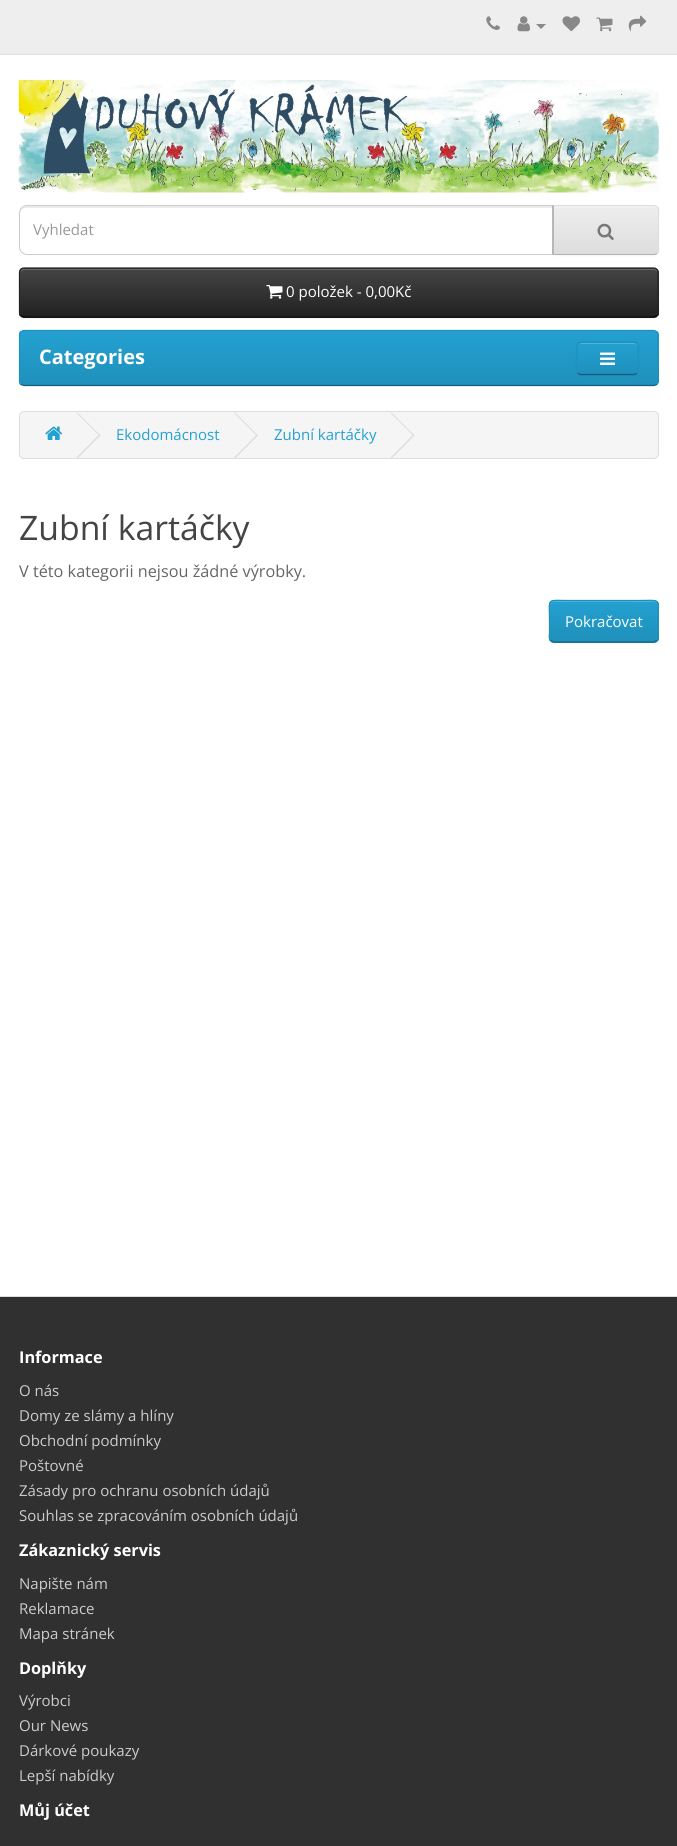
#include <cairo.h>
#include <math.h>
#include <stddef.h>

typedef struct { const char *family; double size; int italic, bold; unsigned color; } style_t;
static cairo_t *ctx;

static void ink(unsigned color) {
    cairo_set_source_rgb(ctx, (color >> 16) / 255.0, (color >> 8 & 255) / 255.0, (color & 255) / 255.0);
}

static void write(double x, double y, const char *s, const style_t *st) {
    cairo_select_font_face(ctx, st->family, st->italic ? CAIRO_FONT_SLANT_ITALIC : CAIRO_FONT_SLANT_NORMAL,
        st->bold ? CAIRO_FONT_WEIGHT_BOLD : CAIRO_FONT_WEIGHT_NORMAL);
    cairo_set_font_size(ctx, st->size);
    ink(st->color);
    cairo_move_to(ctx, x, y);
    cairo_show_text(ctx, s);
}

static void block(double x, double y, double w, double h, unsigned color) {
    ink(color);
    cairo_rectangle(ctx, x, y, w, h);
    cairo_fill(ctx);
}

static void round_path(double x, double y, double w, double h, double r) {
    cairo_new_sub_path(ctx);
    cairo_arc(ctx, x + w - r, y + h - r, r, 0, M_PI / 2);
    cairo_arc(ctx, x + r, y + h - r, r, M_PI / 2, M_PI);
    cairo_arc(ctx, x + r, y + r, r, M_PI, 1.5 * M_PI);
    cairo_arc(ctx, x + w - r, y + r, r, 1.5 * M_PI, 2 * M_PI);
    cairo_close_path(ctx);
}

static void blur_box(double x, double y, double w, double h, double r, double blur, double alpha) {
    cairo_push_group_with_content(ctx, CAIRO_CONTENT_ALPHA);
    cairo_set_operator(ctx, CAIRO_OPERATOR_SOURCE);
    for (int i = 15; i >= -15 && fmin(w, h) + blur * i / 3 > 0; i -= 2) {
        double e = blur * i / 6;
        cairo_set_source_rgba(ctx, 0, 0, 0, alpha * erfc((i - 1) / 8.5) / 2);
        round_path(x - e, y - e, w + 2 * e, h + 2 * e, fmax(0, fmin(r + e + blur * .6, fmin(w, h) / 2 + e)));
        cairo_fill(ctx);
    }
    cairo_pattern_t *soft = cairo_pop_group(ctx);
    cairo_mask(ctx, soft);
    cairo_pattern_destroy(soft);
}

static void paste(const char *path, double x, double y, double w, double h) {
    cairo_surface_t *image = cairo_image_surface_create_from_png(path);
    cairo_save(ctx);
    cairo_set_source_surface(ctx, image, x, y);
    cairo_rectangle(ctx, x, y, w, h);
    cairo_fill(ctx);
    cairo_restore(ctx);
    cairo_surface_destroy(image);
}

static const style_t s1 = {"Open Sans", 15, 0, 0, 0x999999};
static const style_t s2 = {"Open Sans", 15, 0, 0, 0xffffff};
static const style_t s3 = {"Open Sans", 20, 0, 1, 0xffffff};
static const style_t s4 = {"Open Sans", 15, 0, 0, 0x23a1d1};
static const style_t s5 = {"Open Sans", 33.75, 0, 0, 0x444444};
static const style_t s6 = {"Open Sans", 16.25, 0, 0, 0x666666};
static const style_t s7 = {"Open Sans", 16.25, 0, 1, 0xffffff};
static const style_t s8 = {"Open Sans", 15, 0, 0, 0xcccccc};

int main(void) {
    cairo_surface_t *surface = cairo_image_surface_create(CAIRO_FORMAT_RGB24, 677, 1846);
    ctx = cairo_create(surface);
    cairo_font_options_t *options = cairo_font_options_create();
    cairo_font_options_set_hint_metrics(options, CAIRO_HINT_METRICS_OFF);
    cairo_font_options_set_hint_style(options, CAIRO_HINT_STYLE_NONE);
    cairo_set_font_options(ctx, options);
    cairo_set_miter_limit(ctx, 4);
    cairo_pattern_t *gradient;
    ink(0xffffff);
    cairo_paint(ctx);
    block(0, 0, 677, 54, 0xeeeeee);
    block(0, 54, 677, 1, 0xe2e2e2);
    paste("pic1.png", 486, 16, 14, 14);
    paste("pic2.png", 517, 16, 13, 16);
    ink(0x888888);
    cairo_new_path(ctx);
    cairo_move_to(ctx, 536, 24);
    cairo_line_to(ctx, 546, 24);
    cairo_line_to(ctx, 541, 29);
    cairo_close_path(ctx);
    cairo_fill(ctx);
    paste("pic3.png", 562, 16, 18, 16);
    paste("pic4.png", 596, 17, 17, 15);
    paste("pic5.png", 628, 15, 19, 17);
    paste("pic6.png", 18, 80, 641, 113);
    ink(0xececec);
    cairo_new_path(ctx);
    cairo_move_to(ctx, 26, 208);
    cairo_line_to(ctx, 552, 208);
    cairo_line_to(ctx, 552, 254);
    cairo_line_to(ctx, 553, 254);
    cairo_line_to(ctx, 553, 206);
    cairo_line_to(ctx, 26, 206);
    cairo_curve_to(ctx, 23, 206, 20, 209, 20, 212);
    cairo_line_to(ctx, 20, 214);
    cairo_curve_to(ctx, 20, 210, 23, 208, 26, 208);
    cairo_close_path(ctx);
    cairo_fill(ctx);
    cairo_new_path(ctx);
    cairo_move_to(ctx, 27, 205.5);
    cairo_line_to(ctx, 553.5, 205.5);
    cairo_line_to(ctx, 553.5, 254.5);
    cairo_line_to(ctx, 27, 254.5);
    cairo_curve_to(ctx, 23, 254.5, 19.5, 251, 19.5, 247);
    cairo_line_to(ctx, 19.5, 213);
    cairo_curve_to(ctx, 19.5, 209, 23, 205.5, 27, 205.5);
    cairo_close_path(ctx);
    ink(0xcccccc);
    cairo_set_line_width(ctx, 1);
    cairo_stroke(ctx);
    write(33, 235, "Vyhledat", &s1);
    ink(0x000000);
    blur_box(553, 206, 106, 50, 5, 1, 0.05);
    cairo_save(ctx);
    cairo_new_path(ctx);
    cairo_move_to(ctx, 553, 205);
    cairo_line_to(ctx, 654, 205);
    cairo_curve_to(ctx, 657, 205, 659, 207, 659, 210);
    cairo_line_to(ctx, 659, 250);
    cairo_curve_to(ctx, 659, 253, 657, 255, 654, 255);
    cairo_line_to(ctx, 553, 255);
    cairo_close_path(ctx);
    cairo_clip(ctx);
    gradient = cairo_pattern_create_linear(606, 206, 606, 254);
    cairo_pattern_add_color_stop_rgba(gradient, 0, 0.933, 0.933, 0.933, 1);
    cairo_pattern_add_color_stop_rgba(gradient, 1, 0.867, 0.867, 0.867, 1);
    cairo_set_source(ctx, gradient);
    cairo_pattern_destroy(gradient);
    cairo_rectangle(ctx, 554, 206, 105, 48);
    cairo_fill(ctx);
    cairo_restore(ctx);
    ink(0xf1f1f1);
    cairo_new_path(ctx);
    cairo_move_to(ctx, 554, 208);
    cairo_line_to(ctx, 654, 208);
    cairo_curve_to(ctx, 656, 208, 658, 209, 658, 211);
    cairo_line_to(ctx, 658, 210);
    cairo_curve_to(ctx, 658, 208, 656, 206, 654, 206);
    cairo_line_to(ctx, 554, 206);
    cairo_close_path(ctx);
    cairo_fill(ctx);
    ink(0xdddddd);
    cairo_new_path(ctx);
    cairo_move_to(ctx, 554, 206);
    cairo_line_to(ctx, 654, 206);
    cairo_line_to(ctx, 657, 207);
    cairo_line_to(ctx, 657, 206);
    cairo_line_to(ctx, 655, 205);
    cairo_line_to(ctx, 552, 205);
    cairo_close_path(ctx);
    cairo_fill(ctx);
    cairo_new_path(ctx);
    cairo_move_to(ctx, 659, 252);
    cairo_line_to(ctx, 657, 254);
    cairo_line_to(ctx, 657, 253);
    cairo_curve_to(ctx, 657, 252, 658, 251, 658, 250);
    cairo_line_to(ctx, 658, 210);
    cairo_curve_to(ctx, 658, 209, 657, 208, 657, 207);
    cairo_line_to(ctx, 657, 206);
    cairo_line_to(ctx, 659, 208);
    cairo_close_path(ctx);
    cairo_fill(ctx);
    ink(0xb3b3b3);
    cairo_new_path(ctx);
    cairo_move_to(ctx, 552, 255);
    cairo_line_to(ctx, 655, 255);
    cairo_line_to(ctx, 657, 254);
    cairo_line_to(ctx, 657, 253);
    cairo_line_to(ctx, 654, 254);
    cairo_line_to(ctx, 554, 254);
    cairo_close_path(ctx);
    cairo_fill(ctx);
    ink(0xb7b7b7);
    cairo_new_path(ctx);
    cairo_move_to(ctx, 552, 255);
    cairo_line_to(ctx, 554, 254);
    cairo_line_to(ctx, 554, 206);
    cairo_line_to(ctx, 552, 205);
    cairo_close_path(ctx);
    cairo_fill(ctx);
    paste("pic7.png", 597, 223, 17, 17);
    ink(0x000000);
    blur_box(19, 269, 640, 50, 5, 1, 0.05);
    ink(0x363636);
    round_path(19, 268, 640, 50, 5);
    cairo_fill(ctx);
    cairo_save(ctx);
    round_path(19, 268, 640, 50, 5);
    cairo_clip(ctx);
    gradient = cairo_pattern_create_linear(339, 269, 339, 316);
    cairo_pattern_add_color_stop_rgba(gradient, 0, 0.267, 0.267, 0.267, 1);
    cairo_pattern_add_color_stop_rgba(gradient, 1, 0.133, 0.133, 0.133, 1);
    cairo_set_source(ctx, gradient);
    cairo_pattern_destroy(gradient);
    cairo_rectangle(ctx, 19, 269, 640, 47);
    cairo_fill(ctx);
    cairo_restore(ctx);
    ink(0x696969);
    cairo_new_path(ctx);
    cairo_move_to(ctx, 24, 270);
    cairo_line_to(ctx, 654, 270);
    cairo_curve_to(ctx, 656, 270, 658, 272, 658, 274);
    cairo_curve_to(ctx, 658, 271, 657, 269, 654, 269);
    cairo_line_to(ctx, 24, 269);
    cairo_curve_to(ctx, 21, 269, 20, 271, 20, 274);
    cairo_curve_to(ctx, 20, 272, 22, 270, 24, 270);
    cairo_close_path(ctx);
    cairo_fill(ctx);
    cairo_new_path(ctx);
    cairo_move_to(ctx, 657, 315.5);
    cairo_line_to(ctx, 654, 317);
    cairo_line_to(ctx, 24, 317);
    cairo_line_to(ctx, 20.5, 315.5);
    ink(0x000000);
    cairo_set_line_width(ctx, 1.2);
    cairo_stroke(ctx);
    cairo_new_path(ctx);
    cairo_move_to(ctx, 20.5, 315.5);
    cairo_curve_to(ctx, 20, 315, 19.5, 313.5, 19.5, 312.5);
    cairo_line_to(ctx, 19.5, 272.5);
    cairo_curve_to(ctx, 19.5, 271.5, 20, 270, 20.5, 269.5);
    cairo_curve_to(ctx, 21.5, 268.5, 22.5, 268, 24, 268);
    cairo_line_to(ctx, 654, 268);
    cairo_curve_to(ctx, 655, 268, 656, 268.5, 657, 269.5);
    cairo_curve_to(ctx, 657.5, 270, 658, 271.5, 658, 272.5);
    cairo_line_to(ctx, 658, 312.5);
    cairo_curve_to(ctx, 658, 313.5, 657.5, 315, 657, 315.5);
    ink(0x222222);
    cairo_stroke(ctx);
    paste("pic8.png", 266, 285, 17, 14);
    write(286, 297, "0 položek - 0,00Kč", &s2);
    cairo_save(ctx);
    round_path(19, 330, 640, 56, 5);
    cairo_clip(ctx);
    gradient = cairo_pattern_create_linear(339, 331, 339, 385);
    cairo_pattern_add_color_stop_rgba(gradient, 0, 0.137, 0.631, 0.82, 1);
    cairo_pattern_add_color_stop_rgba(gradient, 1, 0.122, 0.565, 0.733, 1);
    cairo_set_source(ctx, gradient);
    cairo_pattern_destroy(gradient);
    cairo_rectangle(ctx, 19, 331, 640, 54);
    cairo_fill(ctx);
    cairo_restore(ctx);
    cairo_new_path(ctx);
    cairo_move_to(ctx, 657, 384.5);
    cairo_line_to(ctx, 654, 385.5);
    cairo_line_to(ctx, 24, 385.5);
    cairo_line_to(ctx, 20.5, 384.5);
    ink(0x145e7a);
    cairo_stroke(ctx);
    cairo_new_path(ctx);
    cairo_move_to(ctx, 20.5, 384.5);
    cairo_line_to(ctx, 19.5, 382);
    cairo_line_to(ctx, 19.5, 334.5);
    cairo_line_to(ctx, 20, 332.5);
    cairo_curve_to(ctx, 21, 331.5, 22.5, 330.5, 24, 330.5);
    cairo_line_to(ctx, 654, 330.5);
    cairo_curve_to(ctx, 655, 330.5, 656.5, 331.5, 657.5, 332.5);
    cairo_line_to(ctx, 658, 334.5);
    cairo_line_to(ctx, 658, 382);
    cairo_line_to(ctx, 657, 384.5);
    ink(0x1f90bb);
    cairo_stroke(ctx);
    write(39, 364, "Categories", &s3);
    ink(0x000000);
    blur_box(576, 343, 63, 33, 5, 1, 0.05);
    ink(0x229ac8);
    round_path(576, 341, 63, 34, 5);
    cairo_fill(ctx);
    cairo_save(ctx);
    round_path(576, 341, 63, 34, 5);
    cairo_clip(ctx);
    gradient = cairo_pattern_create_linear(608, 343, 608, 374);
    cairo_pattern_add_color_stop_rgba(gradient, 0, 0.137, 0.631, 0.82, 1);
    cairo_pattern_add_color_stop_rgba(gradient, 1, 0.122, 0.565, 0.733, 1);
    cairo_set_source(ctx, gradient);
    cairo_pattern_destroy(gradient);
    cairo_rectangle(ctx, 576, 343, 63, 31);
    cairo_fill(ctx);
    cairo_restore(ctx);
    ink(0x4fb4da);
    cairo_new_path(ctx);
    cairo_move_to(ctx, 581, 344);
    cairo_line_to(ctx, 634, 344);
    cairo_curve_to(ctx, 636, 344, 638, 345, 638, 348);
    cairo_curve_to(ctx, 638, 341, 630, 343, 625, 343);
    cairo_line_to(ctx, 591, 343);
    cairo_curve_to(ctx, 586, 343, 578, 341, 578, 348);
    cairo_curve_to(ctx, 578, 345, 579, 344, 581, 344);
    cairo_close_path(ctx);
    cairo_fill(ctx);
    cairo_new_path(ctx);
    cairo_move_to(ctx, 637, 373);
    cairo_curve_to(ctx, 636, 374, 635, 374.5, 634, 374.5);
    cairo_line_to(ctx, 581, 374.5);
    cairo_curve_to(ctx, 580, 374.5, 579, 374, 578, 373);
    ink(0x145e7a);
    cairo_stroke(ctx);
    cairo_new_path(ctx);
    cairo_move_to(ctx, 578, 373);
    cairo_curve_to(ctx, 575.5, 370.5, 577, 361.5, 577, 358);
    cairo_curve_to(ctx, 577, 342, 574, 342, 590, 342);
    cairo_line_to(ctx, 625, 342);
    cairo_curve_to(ctx, 641, 342, 638, 342, 638, 358);
    cairo_curve_to(ctx, 638, 361.5, 639.5, 370.5, 637, 373);
    ink(0x1f90bb);
    cairo_stroke(ctx);
    paste("pic9.png", 600, 352, 15, 13);
    ink(0xf5f5f5);
    round_path(19.5, 411.5, 639, 47, 4.5);
    cairo_fill_preserve(ctx);
    ink(0xdddddd);
    cairo_set_line_width(ctx, 1);
    cairo_stroke(ctx);
    paste("pic10.png", 45, 426, 18, 14);
    cairo_new_path(ctx);
    cairo_move_to(ctx, 76.5, 413);
    cairo_line_to(ctx, 77.5, 412.5);
    cairo_line_to(ctx, 100.5, 435.5);
    cairo_line_to(ctx, 99.5, 436);
    cairo_close_path(ctx);
    cairo_fill(ctx);
    cairo_new_path(ctx);
    cairo_move_to(ctx, 76.5, 457.5);
    cairo_line_to(ctx, 99.5, 434.5);
    cairo_line_to(ctx, 100.5, 435.5);
    cairo_line_to(ctx, 77.5, 458.5);
    cairo_close_path(ctx);
    cairo_fill(ctx);
    write(116, 440, "Ekodomácnost", &s4);
    ink(0xdddddd);
    cairo_new_path(ctx);
    cairo_move_to(ctx, 234, 413);
    cairo_line_to(ctx, 235, 412.5);
    cairo_line_to(ctx, 258, 435.5);
    cairo_line_to(ctx, 257, 436);
    cairo_close_path(ctx);
    cairo_fill(ctx);
    cairo_new_path(ctx);
    cairo_move_to(ctx, 234, 457.5);
    cairo_line_to(ctx, 257, 434.5);
    cairo_line_to(ctx, 258, 435.5);
    cairo_line_to(ctx, 235, 458.5);
    cairo_close_path(ctx);
    cairo_fill(ctx);
    write(274, 440, "Zubní kartáčky", &s4);
    ink(0xdddddd);
    cairo_new_path(ctx);
    cairo_move_to(ctx, 390.5, 413);
    cairo_line_to(ctx, 391.5, 412.5);
    cairo_line_to(ctx, 414.5, 435.5);
    cairo_line_to(ctx, 413.5, 436);
    cairo_close_path(ctx);
    cairo_fill(ctx);
    cairo_new_path(ctx);
    cairo_move_to(ctx, 390.5, 457.5);
    cairo_line_to(ctx, 413.5, 434.5);
    cairo_line_to(ctx, 414.5, 435.5);
    cairo_line_to(ctx, 391.5, 458.5);
    cairo_close_path(ctx);
    cairo_fill(ctx);
    write(19, 540, "Zubní kartáčky", &s5);
    write(19, 577, "V této kategorii nejsou žádné výrobky.", &s6);
    ink(0x000000);
    blur_box(549, 601, 110, 43, 5, 1, 0.05);
    ink(0x229ac8);
    round_path(549, 600, 110, 43, 5);
    cairo_fill(ctx);
    cairo_save(ctx);
    round_path(549, 600, 110, 43, 5);
    cairo_clip(ctx);
    gradient = cairo_pattern_create_linear(604, 601, 604, 641);
    cairo_pattern_add_color_stop_rgba(gradient, 0, 0.137, 0.631, 0.82, 1);
    cairo_pattern_add_color_stop_rgba(gradient, 1, 0.122, 0.565, 0.733, 1);
    cairo_set_source(ctx, gradient);
    cairo_pattern_destroy(gradient);
    cairo_rectangle(ctx, 549, 601, 110, 40);
    cairo_fill(ctx);
    cairo_restore(ctx);
    cairo_set_source_rgba(ctx, 1, 1, 1, 0.2);
    cairo_new_path(ctx);
    cairo_move_to(ctx, 554, 602);
    cairo_line_to(ctx, 654, 602);
    cairo_curve_to(ctx, 656, 602, 658, 604, 658, 606);
    cairo_curve_to(ctx, 658, 597, 641, 601, 637, 601);
    cairo_line_to(ctx, 571, 601);
    cairo_curve_to(ctx, 567, 601, 550, 597, 550, 606);
    cairo_curve_to(ctx, 550, 604, 552, 602, 554, 602);
    cairo_close_path(ctx);
    cairo_fill(ctx);
    cairo_new_path(ctx);
    cairo_move_to(ctx, 657, 640.5);
    cairo_line_to(ctx, 654, 642);
    cairo_line_to(ctx, 553.5, 642);
    cairo_line_to(ctx, 550.5, 640.5);
    ink(0x145e7a);
    cairo_set_line_width(ctx, 1.2);
    cairo_stroke(ctx);
    cairo_new_path(ctx);
    cairo_move_to(ctx, 550.5, 640.5);
    cairo_curve_to(ctx, 548.5, 638.5, 549.5, 634.5, 549.5, 632);
    cairo_line_to(ctx, 549.5, 621);
    cairo_curve_to(ctx, 549.5, 597, 545.5, 600.5, 570.5, 600.5);
    cairo_line_to(ctx, 637, 600.5);
    cairo_curve_to(ctx, 662, 600.5, 658, 597, 658, 621);
    cairo_line_to(ctx, 658, 632);
    cairo_curve_to(ctx, 658, 634.5, 659, 638.5, 657, 640.5);
    ink(0x1f90bb);
    cairo_stroke(ctx);
    write(565, 627, "Pokračovat", &s2);
    block(0, 1297, 677, 549, 0x303030);
    block(0, 1296, 677, 1, 0xdddddd);
    write(19, 1363, "Informace", &s7);
    write(19, 1396, "O nás", &s8);
    write(19, 1421, "Domy ze slámy a hlíny", &s8);
    write(19, 1446, "Obchodní podmínky", &s8);
    write(19, 1471, "Poštovné", &s8);
    write(19, 1496, "Zásady pro ochranu osobních údajů", &s8);
    write(19, 1521, "Souhlas se zpracováním osobních údajů", &s8);
    write(19, 1556, "Zákaznický servis", &s7);
    write(19, 1589, "Napište nám", &s8);
    write(19, 1614, "Reklamace", &s8);
    write(19, 1639, "Mapa stránek", &s8);
    write(19, 1674, "Doplňky", &s7);
    write(19, 1706, "Výrobci", &s8);
    write(19, 1731, "Our News", &s8);
    write(19, 1756, "Dárkové poukazy", &s8);
    write(19, 1781, "Lepší nabídky", &s8);
    write(19, 1816, "Můj účet", &s7);
    cairo_surface_write_to_png(surface, "screenshot.png");
    cairo_font_options_destroy(options);
    cairo_destroy(ctx);
    cairo_surface_destroy(surface);
    return 0;
}
